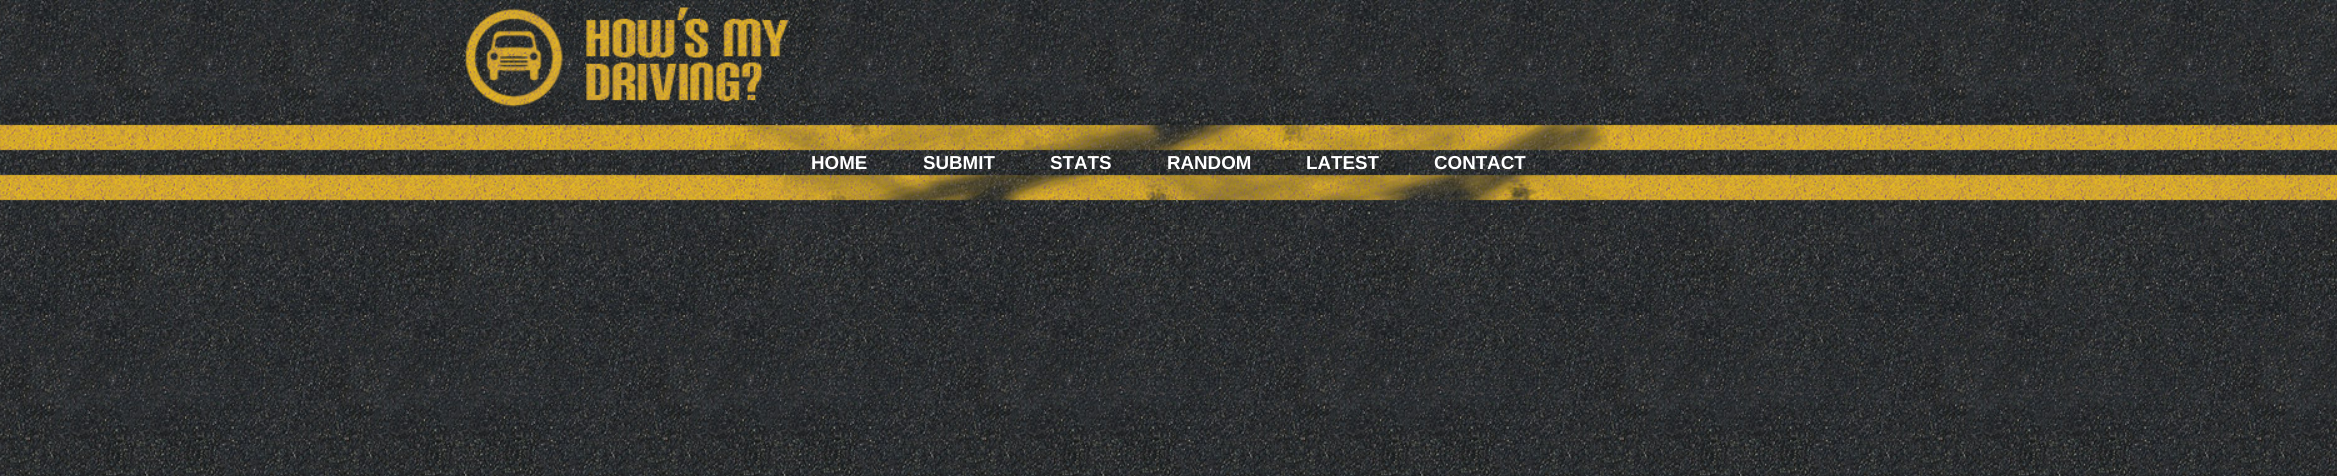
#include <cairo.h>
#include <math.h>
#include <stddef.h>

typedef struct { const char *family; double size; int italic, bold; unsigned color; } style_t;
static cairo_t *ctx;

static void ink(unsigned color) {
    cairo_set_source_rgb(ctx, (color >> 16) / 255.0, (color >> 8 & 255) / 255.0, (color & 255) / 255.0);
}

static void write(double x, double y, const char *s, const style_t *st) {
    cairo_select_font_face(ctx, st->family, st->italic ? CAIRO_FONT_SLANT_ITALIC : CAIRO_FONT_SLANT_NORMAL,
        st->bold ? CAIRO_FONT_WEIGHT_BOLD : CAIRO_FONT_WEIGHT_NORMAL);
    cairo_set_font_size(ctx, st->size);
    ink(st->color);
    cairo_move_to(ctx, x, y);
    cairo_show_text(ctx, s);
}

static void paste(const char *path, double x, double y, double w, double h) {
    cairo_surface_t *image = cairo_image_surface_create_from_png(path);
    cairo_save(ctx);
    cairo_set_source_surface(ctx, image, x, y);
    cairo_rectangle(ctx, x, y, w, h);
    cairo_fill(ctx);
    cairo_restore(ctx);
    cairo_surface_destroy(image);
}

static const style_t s1 = {"Liberation Sans", 18.75, 0, 1, 0xffffff};

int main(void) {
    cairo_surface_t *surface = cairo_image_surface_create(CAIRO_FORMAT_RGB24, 2337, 476);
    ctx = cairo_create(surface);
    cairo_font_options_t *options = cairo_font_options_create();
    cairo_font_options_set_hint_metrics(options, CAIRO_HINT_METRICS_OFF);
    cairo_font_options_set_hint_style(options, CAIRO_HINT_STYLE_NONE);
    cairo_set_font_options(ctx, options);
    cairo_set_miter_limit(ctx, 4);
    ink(0xffffff);
    cairo_paint(ctx);
    paste("pic1.png", 0, 225, 2337, 251);
    paste("pic2.png", 0, 0, 2337, 225);
    paste("pic3.png", 456, 0, 363, 113);
    paste("pic4.png", 730, 117, 878, 108);
    write(811, 169, "HOME", &s1);
    write(923, 169, "SUBMIT", &s1);
    write(1050, 169, "STATS", &s1);
    write(1167, 169, "RANDOM", &s1);
    write(1306, 169, "LATEST", &s1);
    write(1434, 169, "CONTACT", &s1);
    cairo_surface_write_to_png(surface, "screenshot.png");
    cairo_font_options_destroy(options);
    cairo_destroy(ctx);
    cairo_surface_destroy(surface);
    return 0;
}
